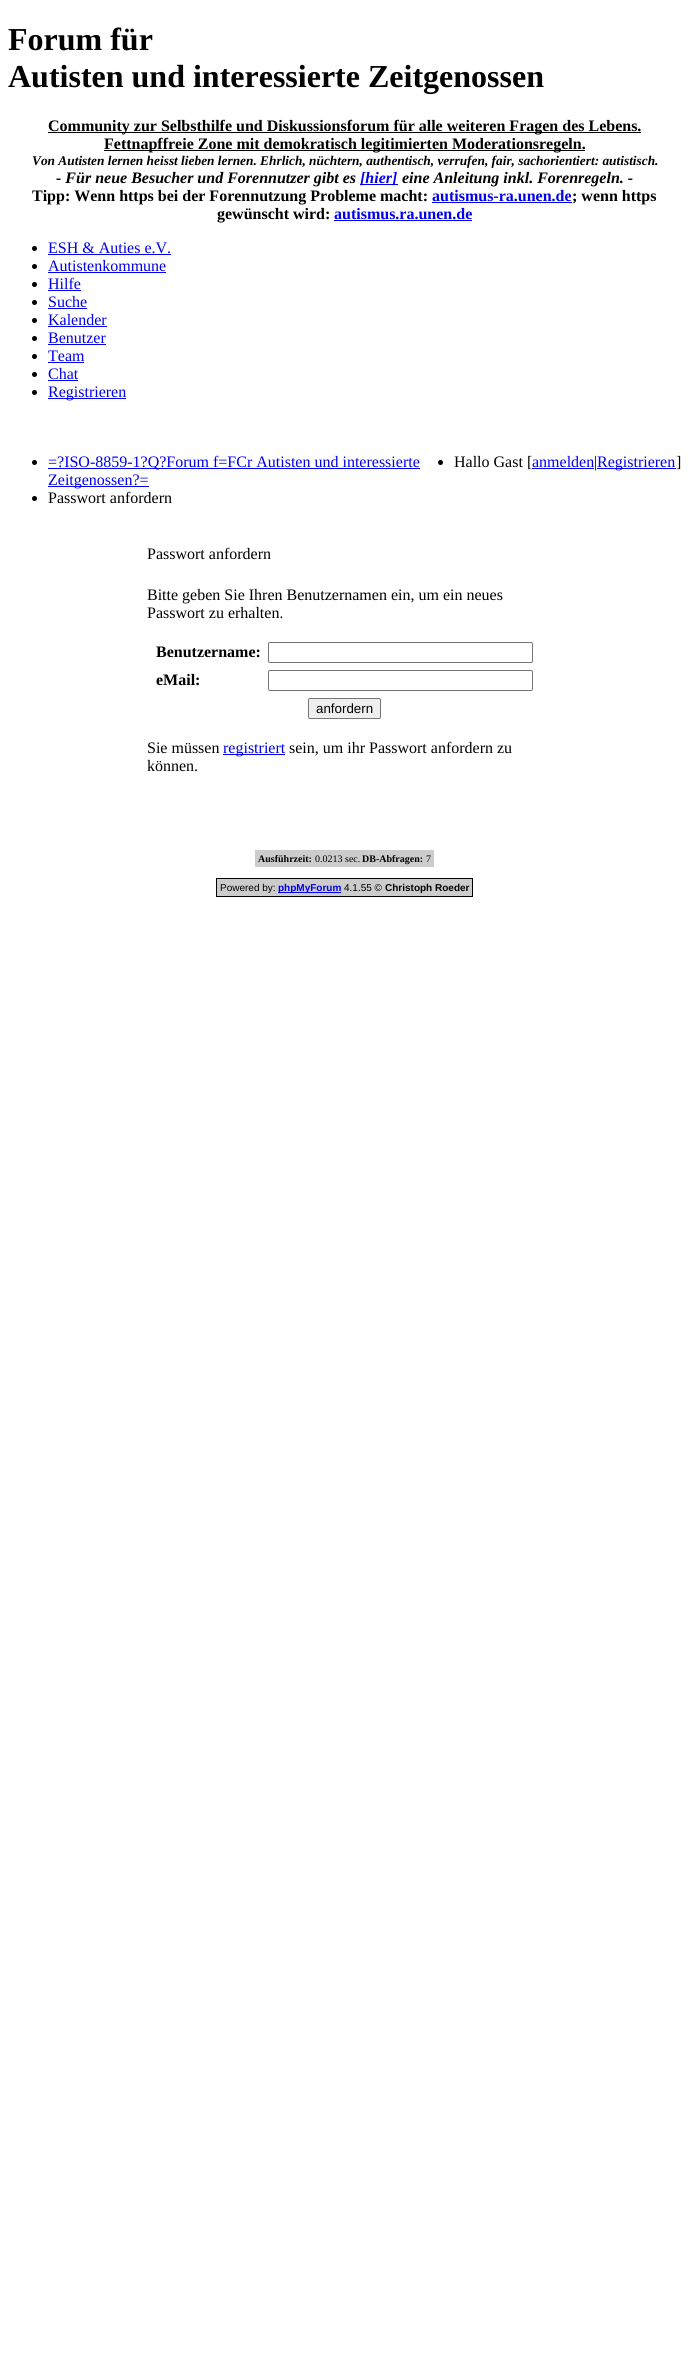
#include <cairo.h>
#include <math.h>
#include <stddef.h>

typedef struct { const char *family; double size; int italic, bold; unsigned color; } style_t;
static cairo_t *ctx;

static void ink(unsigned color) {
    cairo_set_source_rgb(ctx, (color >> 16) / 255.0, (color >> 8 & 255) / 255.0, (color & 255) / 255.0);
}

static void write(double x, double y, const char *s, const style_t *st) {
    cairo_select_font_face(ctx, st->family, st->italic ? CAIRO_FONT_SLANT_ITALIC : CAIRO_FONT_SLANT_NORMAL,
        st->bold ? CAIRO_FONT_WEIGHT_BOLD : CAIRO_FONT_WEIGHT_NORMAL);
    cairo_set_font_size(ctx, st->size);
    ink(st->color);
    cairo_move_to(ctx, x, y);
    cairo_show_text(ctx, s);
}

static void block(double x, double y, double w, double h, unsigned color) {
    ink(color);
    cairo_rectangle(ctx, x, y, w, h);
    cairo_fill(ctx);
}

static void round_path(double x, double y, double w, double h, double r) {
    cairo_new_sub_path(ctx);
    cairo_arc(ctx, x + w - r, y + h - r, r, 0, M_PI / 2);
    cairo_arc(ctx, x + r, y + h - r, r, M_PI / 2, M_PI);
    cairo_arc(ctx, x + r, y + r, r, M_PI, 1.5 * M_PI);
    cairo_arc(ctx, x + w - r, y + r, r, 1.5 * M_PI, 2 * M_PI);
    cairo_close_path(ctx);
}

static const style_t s1 = {"Liberation Serif", 32, 0, 1, 0x000000};
static const style_t s2 = {"Liberation Serif", 16, 0, 1, 0x000000};
static const style_t s3 = {"Liberation Serif", 13.35, 1, 1, 0x000000};
static const style_t s4 = {"Liberation Serif", 16, 1, 1, 0x000000};
static const style_t s5 = {"Liberation Serif", 16, 1, 1, 0x0000ee};
static const style_t s6 = {"Liberation Serif", 16, 0, 1, 0x0000ee};
static const style_t s7 = {"Liberation Serif", 16, 0, 0, 0x0000ee};
static const style_t s8 = {"Liberation Serif", 16, 0, 0, 0x000000};
static const style_t s9 = {"Liberation Sans", 13.35, 0, 0, 0x000000};
static const style_t s10 = {"Liberation Serif", 10, 0, 1, 0x000000};
static const style_t s11 = {"Liberation Serif", 10, 0, 0, 0x000000};
static const style_t s12 = {"Liberation Sans", 10, 0, 0, 0x000000};
static const style_t s13 = {"Liberation Sans", 10, 0, 1, 0x0000ee};
static const style_t s14 = {"Liberation Sans", 10, 0, 1, 0x000000};

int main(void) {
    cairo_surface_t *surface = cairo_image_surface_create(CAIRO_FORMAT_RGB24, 689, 2371);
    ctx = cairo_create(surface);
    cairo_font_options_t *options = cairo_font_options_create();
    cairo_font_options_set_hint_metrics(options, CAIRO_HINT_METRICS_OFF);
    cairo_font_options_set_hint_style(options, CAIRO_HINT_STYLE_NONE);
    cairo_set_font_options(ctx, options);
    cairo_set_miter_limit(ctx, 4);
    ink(0xffffff);
    cairo_paint(ctx);
    write(8, 50, "Forum für", &s1);
    write(8, 87, "Autisten und interessierte Zeitgenossen", &s1);
    block(48, 132, 593, 1, 0x000000);
    write(48, 131, "Community zur Selbsthilfe und Diskussionsforum für alle weiteren Fragen des Lebens.", &s2);
    block(104, 150, 481, 1, 0x000000);
    write(104, 149, "Fettnapffreie Zone mit demokratisch legitimierten Moderationsregeln.", &s2);
    write(32, 165, "Von Autisten lernen heisst lieben lernen. Ehrlich, nüchtern, authentisch, verrufen, fair, sachorientiert: autistisch.", &s3);
    write(56, 183, "- Für neue Besucher und Forennutzer gibt es", &s4);
    block(360, 184, 38, 1, 0x0000ee);
    write(360, 183, "[hier]", &s5);
    write(402, 183, "eine Anleitung inkl. Forenregeln. -", &s4);
    write(32, 201, "Tipp: Wenn https bei der Forennutzung Probleme macht:", &s2);
    write(432, 201, "autismus-ra.unen.de", &s6);
    write(572, 201, "; wenn https", &s2);
    block(432, 202, 140, 1, 0x0000ee);
    write(217, 219, "gewünscht wird:", &s2);
    write(334, 219, "autismus.ra.unen.de", &s6);
    block(334, 220, 138, 1, 0x0000ee);
    ink(0x000000);
    cairo_new_path(ctx);
    cairo_arc(ctx, 34.5, 248.5, 2.5, 0, 2 * M_PI);
    cairo_fill(ctx);
    write(48, 253, "ESH & Auties e.V.", &s7);
    block(48, 254, 123, 1, 0x0000ee);
    ink(0x000000);
    cairo_new_path(ctx);
    cairo_arc(ctx, 34.5, 266.5, 2.5, 0, 2 * M_PI);
    cairo_fill(ctx);
    write(48, 271, "Autistenkommune", &s7);
    block(48, 272, 118, 1, 0x0000ee);
    ink(0x000000);
    cairo_new_path(ctx);
    cairo_arc(ctx, 34.5, 284.5, 2.5, 0, 2 * M_PI);
    cairo_fill(ctx);
    write(48, 289, "Hilfe", &s7);
    block(48, 290, 33, 1, 0x0000ee);
    ink(0x000000);
    cairo_new_path(ctx);
    cairo_arc(ctx, 34.5, 302.5, 2.5, 0, 2 * M_PI);
    cairo_fill(ctx);
    write(48, 307, "Suche", &s7);
    block(48, 308, 39, 1, 0x0000ee);
    ink(0x000000);
    cairo_new_path(ctx);
    cairo_arc(ctx, 34.5, 320.5, 2.5, 0, 2 * M_PI);
    cairo_fill(ctx);
    write(48, 325, "Kalender", &s7);
    block(48, 326, 59, 1, 0x0000ee);
    ink(0x000000);
    cairo_new_path(ctx);
    cairo_arc(ctx, 34.5, 338.5, 2.5, 0, 2 * M_PI);
    cairo_fill(ctx);
    write(48, 343, "Benutzer", &s7);
    block(48, 344, 58, 1, 0x0000ee);
    ink(0x000000);
    cairo_new_path(ctx);
    cairo_arc(ctx, 34.5, 356.5, 2.5, 0, 2 * M_PI);
    cairo_fill(ctx);
    write(48, 361, "Team", &s7);
    block(48, 362, 36, 1, 0x0000ee);
    ink(0x000000);
    cairo_new_path(ctx);
    cairo_arc(ctx, 34.5, 374.5, 2.5, 0, 2 * M_PI);
    cairo_fill(ctx);
    write(48, 379, "Chat", &s7);
    block(48, 380, 30, 1, 0x0000ee);
    ink(0x000000);
    cairo_new_path(ctx);
    cairo_arc(ctx, 34.5, 392.5, 2.5, 0, 2 * M_PI);
    cairo_fill(ctx);
    block(48, 398, 78, 1, 0x0000ee);
    write(48, 397, "Registrieren", &s7);
    ink(0x000000);
    cairo_new_path(ctx);
    cairo_arc(ctx, 34.5, 462.5, 2.5, 0, 2 * M_PI);
    cairo_fill(ctx);
    block(48, 468, 372, 1, 0x0000ee);
    write(48, 467, "=?ISO-8859-1?Q?Forum f=FCr Autisten und interessierte", &s7);
    block(48, 486, 101, 1, 0x0000ee);
    write(48, 485, "Zeitgenossen?=", &s7);
    ink(0x000000);
    cairo_new_path(ctx);
    cairo_arc(ctx, 440.5, 462.5, 2.5, 0, 2 * M_PI);
    cairo_fill(ctx);
    write(454, 467, "Hallo Gast [", &s8);
    write(532, 467, "anmelden", &s7);
    block(532, 468, 62, 1, 0x0000ee);
    write(594, 467, "|", &s8);
    block(597, 468, 79, 1, 0x0000ee);
    write(597, 467, "Registrieren", &s7);
    write(676, 467, "]", &s8);
    cairo_new_path(ctx);
    cairo_arc(ctx, 34.5, 498.5, 2.5, 0, 2 * M_PI);
    cairo_fill(ctx);
    write(48, 503, "Passwort anfordern", &s8);
    write(147, 559, "Passwort anfordern", &s8);
    write(147, 600, "Bitte geben Sie Ihren Benutzernamen ein, um ein neues", &s8);
    write(147, 618, "Passwort zu erhalten.", &s8);
    write(156, 657, "Benutzername:", &s2);
    round_path(268.5, 642.5, 264, 20, 1.5);
    ink(0x767676);
    cairo_set_line_width(ctx, 1);
    cairo_stroke(ctx);
    write(156, 685, "eMail:", &s2);
    round_path(268.5, 670.5, 264, 20, 1.5);
    ink(0x767676);
    cairo_stroke(ctx);
    ink(0xefefef);
    round_path(308.5, 698.5, 72, 20, 1.5);
    cairo_fill_preserve(ctx);
    ink(0x767676);
    cairo_stroke(ctx);
    write(316, 713, "anfordern", &s9);
    write(147, 753, "Sie müssen", &s8);
    block(223, 754, 62, 1, 0x0000ee);
    write(223, 753, "registriert", &s7);
    write(289, 753, "sein, um ihr Passwort anfordern zu", &s8);
    write(147, 771, "können.", &s8);
    block(255, 850, 179, 17, 0xcccccc);
    write(258, 862, "Ausführzeit:", &s10);
    write(315, 862, "0.0213 sec.", &s11);
    write(362, 862, "DB-Abfragen:", &s10);
    write(426, 862, "7", &s11);
    cairo_rectangle(ctx, 216.5, 878.5, 256, 18);
    cairo_stroke(ctx);
    block(217, 879, 255, 17, 0xcccccc);
    write(220, 891, "Powered by:", &s12);
    block(278, 892, 63, 1, 0x0000ee);
    write(278, 891, "phpMyForum", &s13);
    write(344, 891, "4.1.55 ©", &s12);
    write(385, 891, "Christoph Roeder", &s14);
    cairo_surface_write_to_png(surface, "screenshot.png");
    cairo_font_options_destroy(options);
    cairo_destroy(ctx);
    cairo_surface_destroy(surface);
    return 0;
}
